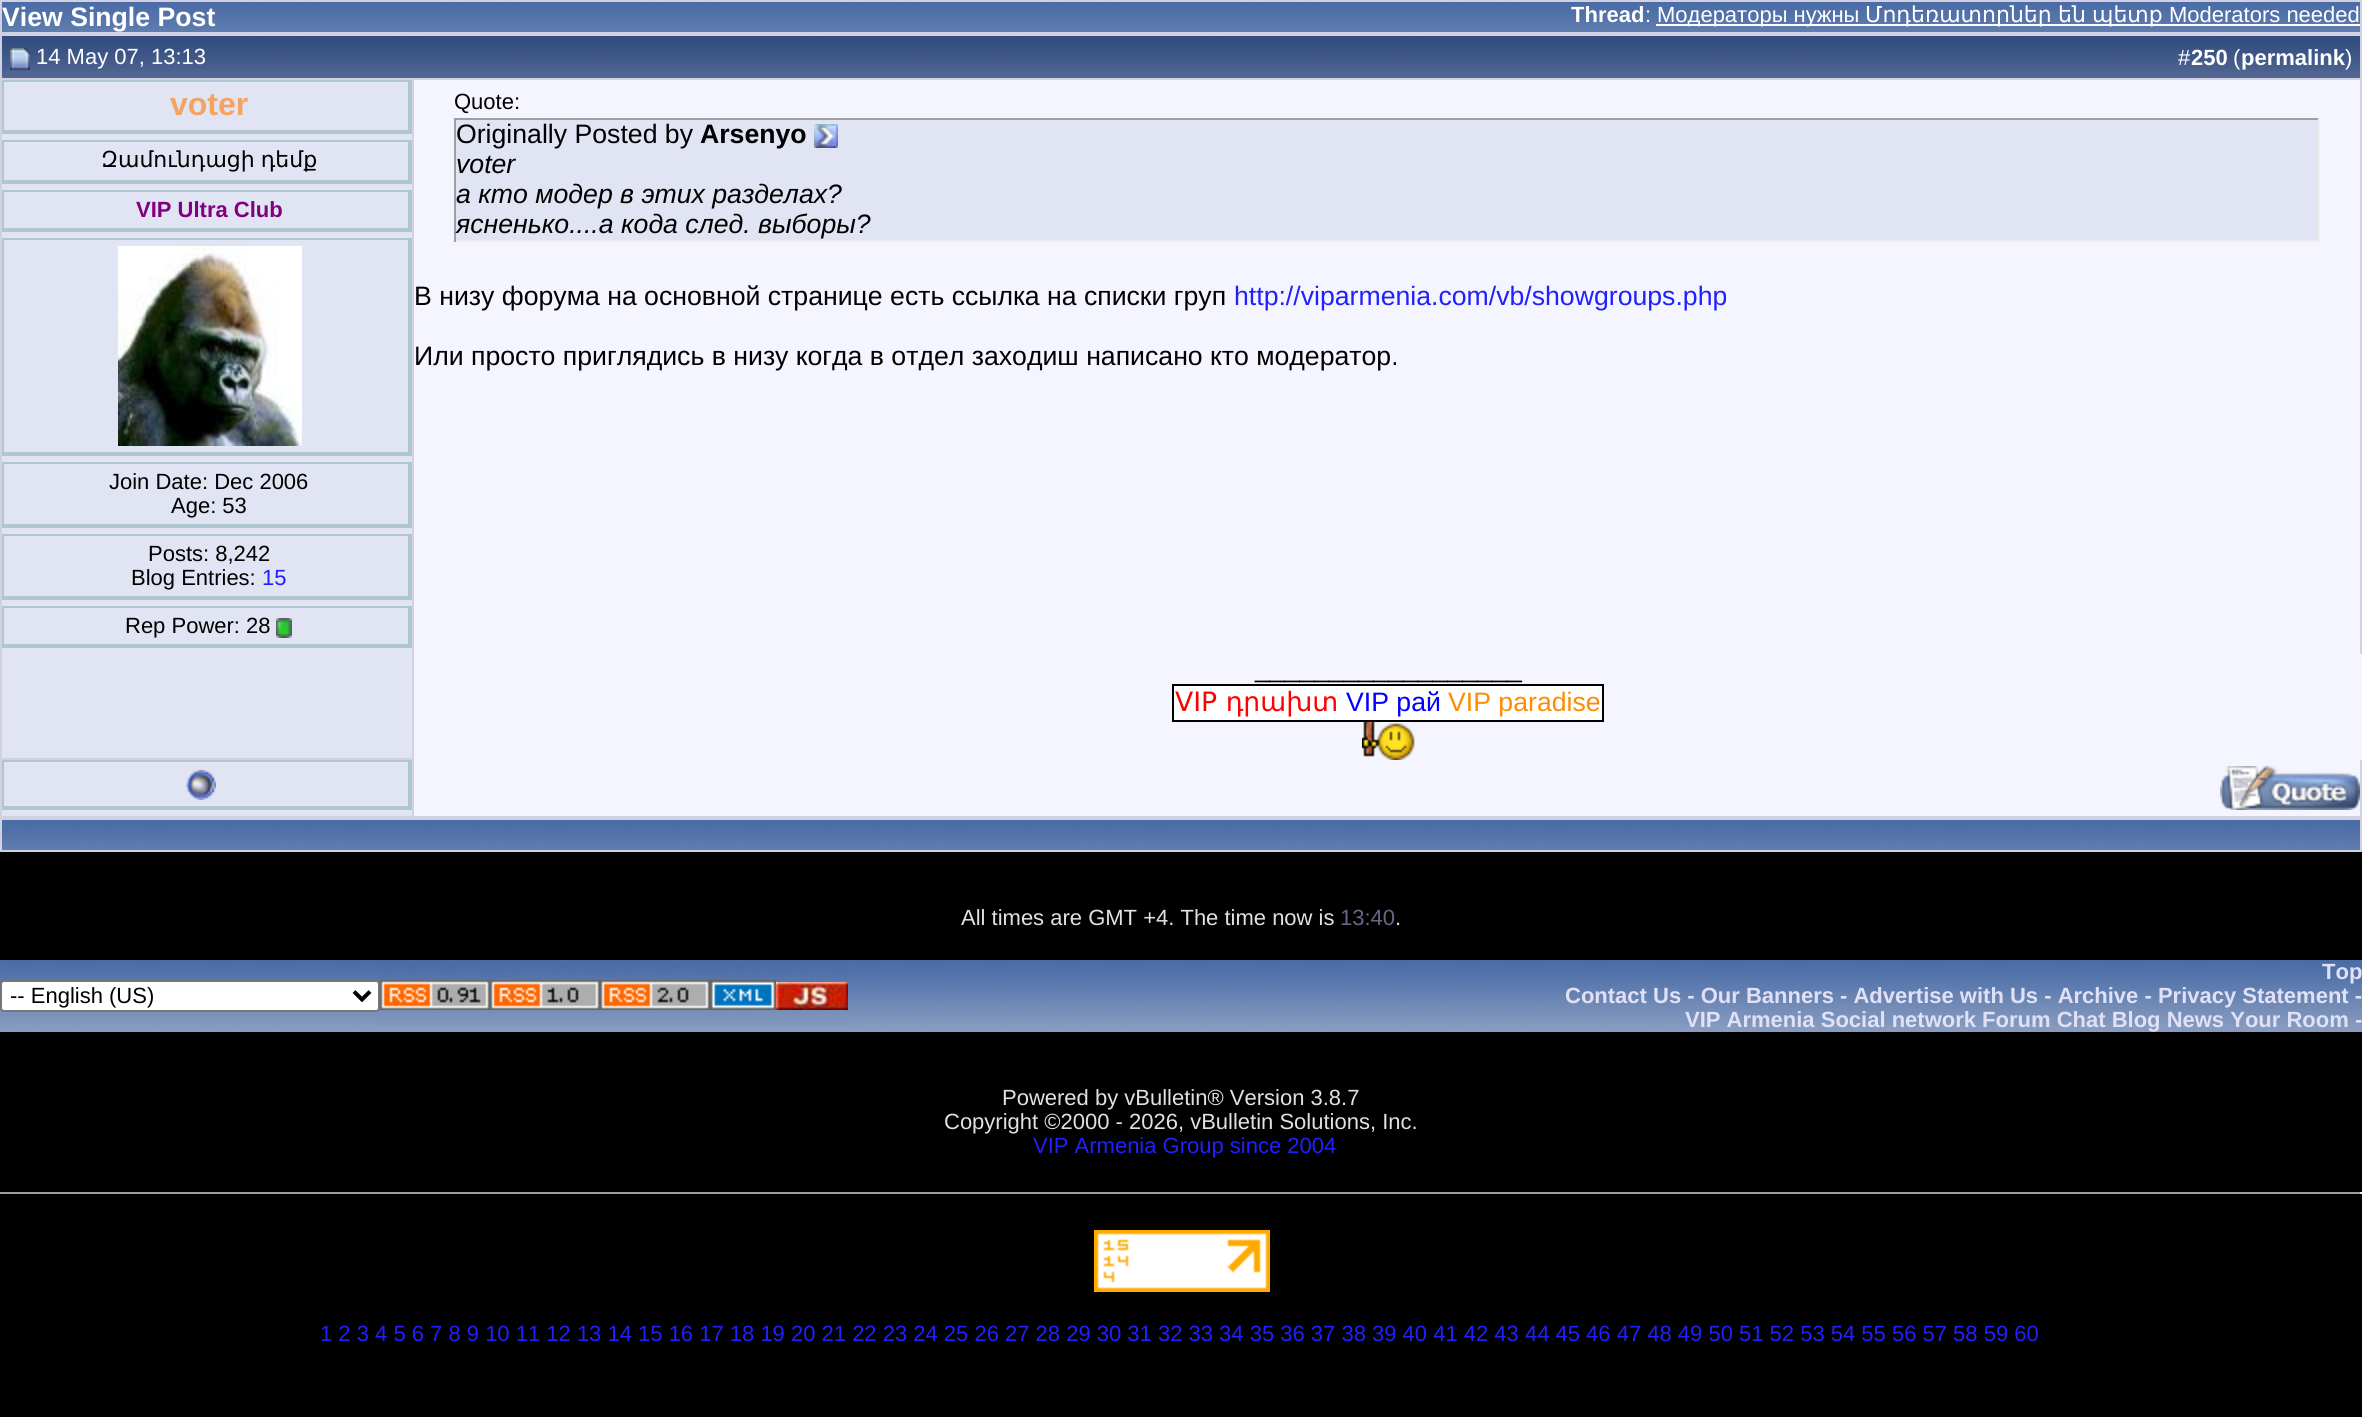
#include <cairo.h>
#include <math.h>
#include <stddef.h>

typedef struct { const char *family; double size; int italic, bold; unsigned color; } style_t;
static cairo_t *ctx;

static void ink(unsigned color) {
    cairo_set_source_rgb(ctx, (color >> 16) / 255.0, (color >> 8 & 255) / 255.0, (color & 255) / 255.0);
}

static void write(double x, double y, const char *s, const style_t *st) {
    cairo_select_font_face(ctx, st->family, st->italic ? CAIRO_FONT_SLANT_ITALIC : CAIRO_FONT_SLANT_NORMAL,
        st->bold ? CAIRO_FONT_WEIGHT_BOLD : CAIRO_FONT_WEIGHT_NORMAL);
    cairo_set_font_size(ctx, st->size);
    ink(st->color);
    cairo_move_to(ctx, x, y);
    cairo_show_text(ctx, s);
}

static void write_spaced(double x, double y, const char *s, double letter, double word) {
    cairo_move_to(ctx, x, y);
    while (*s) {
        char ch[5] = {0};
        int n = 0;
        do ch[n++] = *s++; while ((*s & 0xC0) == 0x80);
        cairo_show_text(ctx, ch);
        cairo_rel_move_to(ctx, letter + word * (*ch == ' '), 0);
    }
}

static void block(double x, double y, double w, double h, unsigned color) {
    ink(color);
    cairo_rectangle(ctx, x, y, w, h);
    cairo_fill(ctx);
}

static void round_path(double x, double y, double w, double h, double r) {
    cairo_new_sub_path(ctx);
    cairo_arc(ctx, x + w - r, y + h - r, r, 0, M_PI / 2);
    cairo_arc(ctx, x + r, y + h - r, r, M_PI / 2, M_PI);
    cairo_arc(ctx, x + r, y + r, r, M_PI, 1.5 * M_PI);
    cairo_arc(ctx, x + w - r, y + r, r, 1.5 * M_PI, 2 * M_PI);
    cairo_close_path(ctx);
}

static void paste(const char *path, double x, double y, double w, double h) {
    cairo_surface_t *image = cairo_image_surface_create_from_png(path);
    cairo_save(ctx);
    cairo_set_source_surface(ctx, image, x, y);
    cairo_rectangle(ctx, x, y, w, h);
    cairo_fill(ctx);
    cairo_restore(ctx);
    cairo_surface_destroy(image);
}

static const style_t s1 = {"Liberation Sans", 26.65, 0, 1, 0xffffff};
static const style_t s2 = {"Liberation Sans", 22, 0, 1, 0xffffff};
static const style_t s3 = {"Liberation Sans", 22, 0, 0, 0xffffff};
static const style_t s4 = {"DejaVu Sans", 22, 0, 0, 0xffffff};
static const style_t s5 = {"Liberation Sans", 32, 0, 1, 0xf4a460};
static const style_t s6 = {"Liberation Sans", 22, 0, 1, 0x800080};
static const style_t s7 = {"Liberation Sans", 22, 0, 0, 0x000000};
static const style_t s8 = {"Liberation Sans", 22, 0, 0, 0x2020ff};
static const style_t s9 = {"Liberation Sans", 26.65, 0, 0, 0x000000};
static const style_t s10 = {"Liberation Sans", 26.65, 0, 1, 0x000000};
static const style_t s11 = {"Liberation Sans", 26.65, 1, 0, 0x000000};
static const style_t s12 = {"Liberation Sans", 26.65, 0, 0, 0x2020ff};
static const style_t s13 = {"DejaVu Sans", 26.65, 0, 0, 0xff0000};
static const style_t s14 = {"Liberation Sans", 26.65, 0, 0, 0x0000ff};
static const style_t s15 = {"Liberation Sans", 26.65, 0, 0, 0xff8c00};
static const style_t s16 = {"Liberation Sans", 22, 0, 0, 0xe1e1e2};
static const style_t s17 = {"Liberation Sans", 22, 0, 0, 0x666686};
static const style_t s18 = {"Liberation Sans", 22, 0, 1, 0xe0e0f6};

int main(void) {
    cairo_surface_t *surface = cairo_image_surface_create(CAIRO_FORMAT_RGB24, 2362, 1417);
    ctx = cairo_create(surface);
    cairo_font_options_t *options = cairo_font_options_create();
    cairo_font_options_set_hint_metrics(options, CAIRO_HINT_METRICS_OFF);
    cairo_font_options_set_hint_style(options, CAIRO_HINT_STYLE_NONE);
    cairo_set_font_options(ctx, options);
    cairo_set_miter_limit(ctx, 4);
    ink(0x000000);
    cairo_paint(ctx);
    block(0, 0, 2362, 34, 0xd1d1e1);
    paste("pic1.png", 2, 2, 2358, 30);
    write(2, 26, "View Single Post", &s1);
    write(1571, 22, "Thread", &s2);
    write(1645, 22, ":", &s3);
    block(1656, 24, 704, 2, 0xffffff);
    write(1657, 22, "Модераторы нужны", &s3);
    write(1865, 22, "Մոդեռատորներ", &s4);
    write(2058, 22, "են", &s4);
    write(2092, 22, "պետք", &s4);
    write(2169, 22, "Moderators needed", &s3);
    paste("pic2.png", 2, 36, 412, 42);
    block(0, 34, 2362, 2, 0xd1d1e1);
    block(0, 78, 414, 2, 0xd1d1e1);
    block(0, 34, 2, 620, 0xd1d1e1);
    paste("pic3.png", 10, 48, 20, 22);
    write(36, 64, "14 May 07, 13:13", &s3);
    paste("pic4.png", 414, 36, 1946, 42);
    block(2360, 34, 2, 620, 0xd1d1e1);
    block(414, 78, 1948, 2, 0xd1d1e1);
    write(2178, 65, "#", &s3);
    write(2191, 65, "250", &s2);
    write(2233, 65, "(", &s3);
    write(2241, 65, "permalink", &s2);
    write(2345, 65, ")", &s3);
    block(2, 82, 410, 676, 0xe1e4f2);
    block(412, 80, 2, 738, 0xd1d1e1);
    block(2, 80, 410, 2, 0xb1c7cf);
    block(408, 80, 4, 54, 0xb1c7cf);
    block(2, 130, 410, 4, 0xb1c7cf);
    block(2, 80, 2, 54, 0xb1c7cf);
    write(170, 115, "voter", &s5);
    block(2, 140, 410, 2, 0xb1c7cf);
    block(408, 140, 4, 44, 0xb1c7cf);
    block(2, 180, 410, 4, 0xb1c7cf);
    block(2, 140, 2, 44, 0xb1c7cf);
    cairo_select_font_face(ctx, "DejaVu Sans", CAIRO_FONT_SLANT_NORMAL, CAIRO_FONT_WEIGHT_NORMAL);
    cairo_set_font_size(ctx, 22);
    ink(0x000000);
    write_spaced(101, 167, "Զամունդացի դեմք", 0, -1);
    block(2, 190, 410, 2, 0xb1c7cf);
    block(408, 190, 4, 42, 0xb1c7cf);
    block(2, 228, 410, 4, 0xb1c7cf);
    block(2, 190, 2, 42, 0xb1c7cf);
    write(136, 217, "VIP Ultra Club", &s6);
    block(2, 238, 410, 2, 0xb1c7cf);
    block(408, 238, 4, 218, 0xb1c7cf);
    block(2, 452, 410, 4, 0xb1c7cf);
    block(2, 238, 2, 218, 0xb1c7cf);
    paste("pic5.png", 118, 246, 184, 200);
    block(2, 462, 410, 2, 0xb1c7cf);
    block(408, 462, 4, 66, 0xb1c7cf);
    block(2, 524, 410, 4, 0xb1c7cf);
    block(2, 462, 2, 66, 0xb1c7cf);
    write(109, 489, "Join Date: Dec 2006", &s7);
    write(171, 513, "Age: 53", &s7);
    block(2, 534, 410, 2, 0xb1c7cf);
    block(408, 534, 4, 66, 0xb1c7cf);
    block(2, 596, 410, 4, 0xb1c7cf);
    block(2, 534, 2, 66, 0xb1c7cf);
    write(148, 561, "Posts: 8,242", &s7);
    write(131, 585, "Blog Entries:", &s7);
    write(262, 585, "15", &s8);
    block(2, 606, 410, 2, 0xb1c7cf);
    block(408, 606, 4, 42, 0xb1c7cf);
    block(2, 644, 410, 4, 0xb1c7cf);
    block(2, 606, 2, 42, 0xb1c7cf);
    write(125, 633, "Rep Power: 28", &s7);
    paste("pic6.png", 276, 618, 16, 20);
    block(414, 80, 1946, 574, 0xf5f5ff);
    write(454, 109, "Quote:", &s7);
    block(456, 120, 1862, 120, 0xe1e4f2);
    block(454, 118, 1866, 2, 0x9f9f9f);
    block(2318, 118, 2, 124, 0xeeeeee);
    block(454, 240, 1866, 2, 0xeeeeee);
    block(454, 118, 2, 124, 0x9f9f9f);
    write(456, 143, "Originally Posted by", &s9);
    write(700, 143, "Arsenyo", &s10);
    paste("pic7.png", 814, 124, 24, 24);
    write(456, 173, "voter", &s11);
    write(456, 203, "а кто модер в этих разделах?", &s11);
    write(456, 233, "ясненько....а кода след. выборы?", &s11);
    write(414, 305, "В низу форума на основной странице есть ссылка на списки груп", &s9);
    write(1234, 305, "http://viparmenia.com/vb/showgroups.php", &s12);
    write(414, 365, "Или просто приглядись в низу когда в отдел заходиш написано кто модератор.", &s9);
    block(0, 758, 414, 2, 0xd1d1e1);
    block(0, 654, 2, 106, 0xd1d1e1);
    block(414, 654, 1948, 106, 0xf5f5ff);
    write(1255, 677, "__________________", &s9);
    block(1174, 686, 428, 34, 0xffffff);
    block(1172, 684, 432, 2, 0x000000);
    block(1602, 684, 2, 38, 0x000000);
    block(1172, 720, 432, 2, 0x000000);
    block(1172, 684, 2, 38, 0x000000);
    write(1175, 711, "VIP դրախտ", &s13);
    write(1346, 711, "VIP рай", &s14);
    write(1448, 711, "VIP paradise", &s15);
    paste("pic8.png", 1362, 722, 53, 38);
    block(2, 762, 410, 54, 0xe1e4f2);
    block(0, 816, 414, 2, 0xd1d1e1);
    block(0, 760, 2, 58, 0xd1d1e1);
    block(2, 760, 410, 2, 0xb1c7cf);
    block(408, 760, 4, 50, 0xb1c7cf);
    block(2, 806, 410, 4, 0xb1c7cf);
    block(2, 760, 2, 50, 0xb1c7cf);
    paste("pic9.png", 186, 770, 30, 30);
    block(414, 760, 1946, 56, 0xf5f5ff);
    block(2360, 760, 2, 58, 0xd1d1e1);
    block(414, 816, 1948, 2, 0xd1d1e1);
    paste("pic10.png", 2220, 766, 140, 44);
    block(0, 818, 2362, 34, 0xd1d1e1);
    paste("pic1.png", 2, 820, 2358, 30);
    write(961, 925, "All times are GMT +4. The time now is", &s16);
    write(1340, 925, "13:40", &s17);
    write(1395, 925, ".", &s16);
    block(380, 1026, 468, 6, 0x869bbf);
    paste("pic11.png", 380, 960, 110, 66);
    paste("pic12.png", 380, 980, 110, 30);
    block(0, 1025, 380, 7, 0x869bbf);
    paste("pic13.png", 0, 960, 380, 65);
    ink(0xffffff);
    round_path(1, 981, 378, 30, 3);
    cairo_fill_preserve(ctx);
    ink(0x767676);
    cairo_stroke(ctx);
    cairo_new_path(ctx);
    cairo_move_to(ctx, 354, 991.5);
    cairo_line_to(ctx, 362, 999.5);
    cairo_line_to(ctx, 370, 991.5);
    ink(0x000000);
    cairo_set_line_width(ctx, 4);
    cairo_stroke(ctx);
    write(10, 1003, "-- English (US)", &s7);
    paste("pic11.png", 490, 960, 110, 66);
    paste("pic14.png", 490, 980, 110, 30);
    paste("pic11.png", 600, 960, 110, 66);
    paste("pic15.png", 600, 980, 110, 30);
    paste("pic16.png", 710, 960, 66, 66);
    paste("pic17.png", 710, 980, 66, 30);
    paste("pic18.png", 776, 960, 72, 66);
    paste("pic19.png", 776, 982, 72, 28);
    block(848, 1025, 1514, 7, 0x869bbf);
    paste("pic20.png", 848, 960, 1514, 65);
    write(2322, 979, "Top", &s18);
    write(1565, 1003, "Contact Us - Our Banners - Advertise with Us - Archive - Privacy Statement -", &s18);
    write(1685, 1027, "VIP Armenia Social network Forum Chat Blog News Your Room -", &s18);
    write(1002, 1105, "Powered by vBulletin® Version 3.8.7", &s16);
    write(944, 1129, "Copyright ©2000 - 2026, vBulletin Solutions, Inc.", &s16);
    write(1033, 1153, "VIP Armenia Group since 2004", &s8);
    block(0, 1192, 2362, 2, 0x9f9f9f);
    block(2360, 1192, 2, 2, 0xeeeeee);
    paste("pic21.png", 1094, 1230, 176, 62);
    write(320, 1341, "1 2 3 4 5 6 7 8 9 10 11 12 13 14 15 16 17 18 19 20 21 22 23 24 25 26 27 28 29 30 31 32 33 34 35 36 37 38 39 40 41 42 43 44 45 46 47 48 49 50 51 52 53 54 55 56 57 58 59 60", &s8);
    cairo_surface_write_to_png(surface, "screenshot.png");
    cairo_font_options_destroy(options);
    cairo_destroy(ctx);
    cairo_surface_destroy(surface);
    return 0;
}
